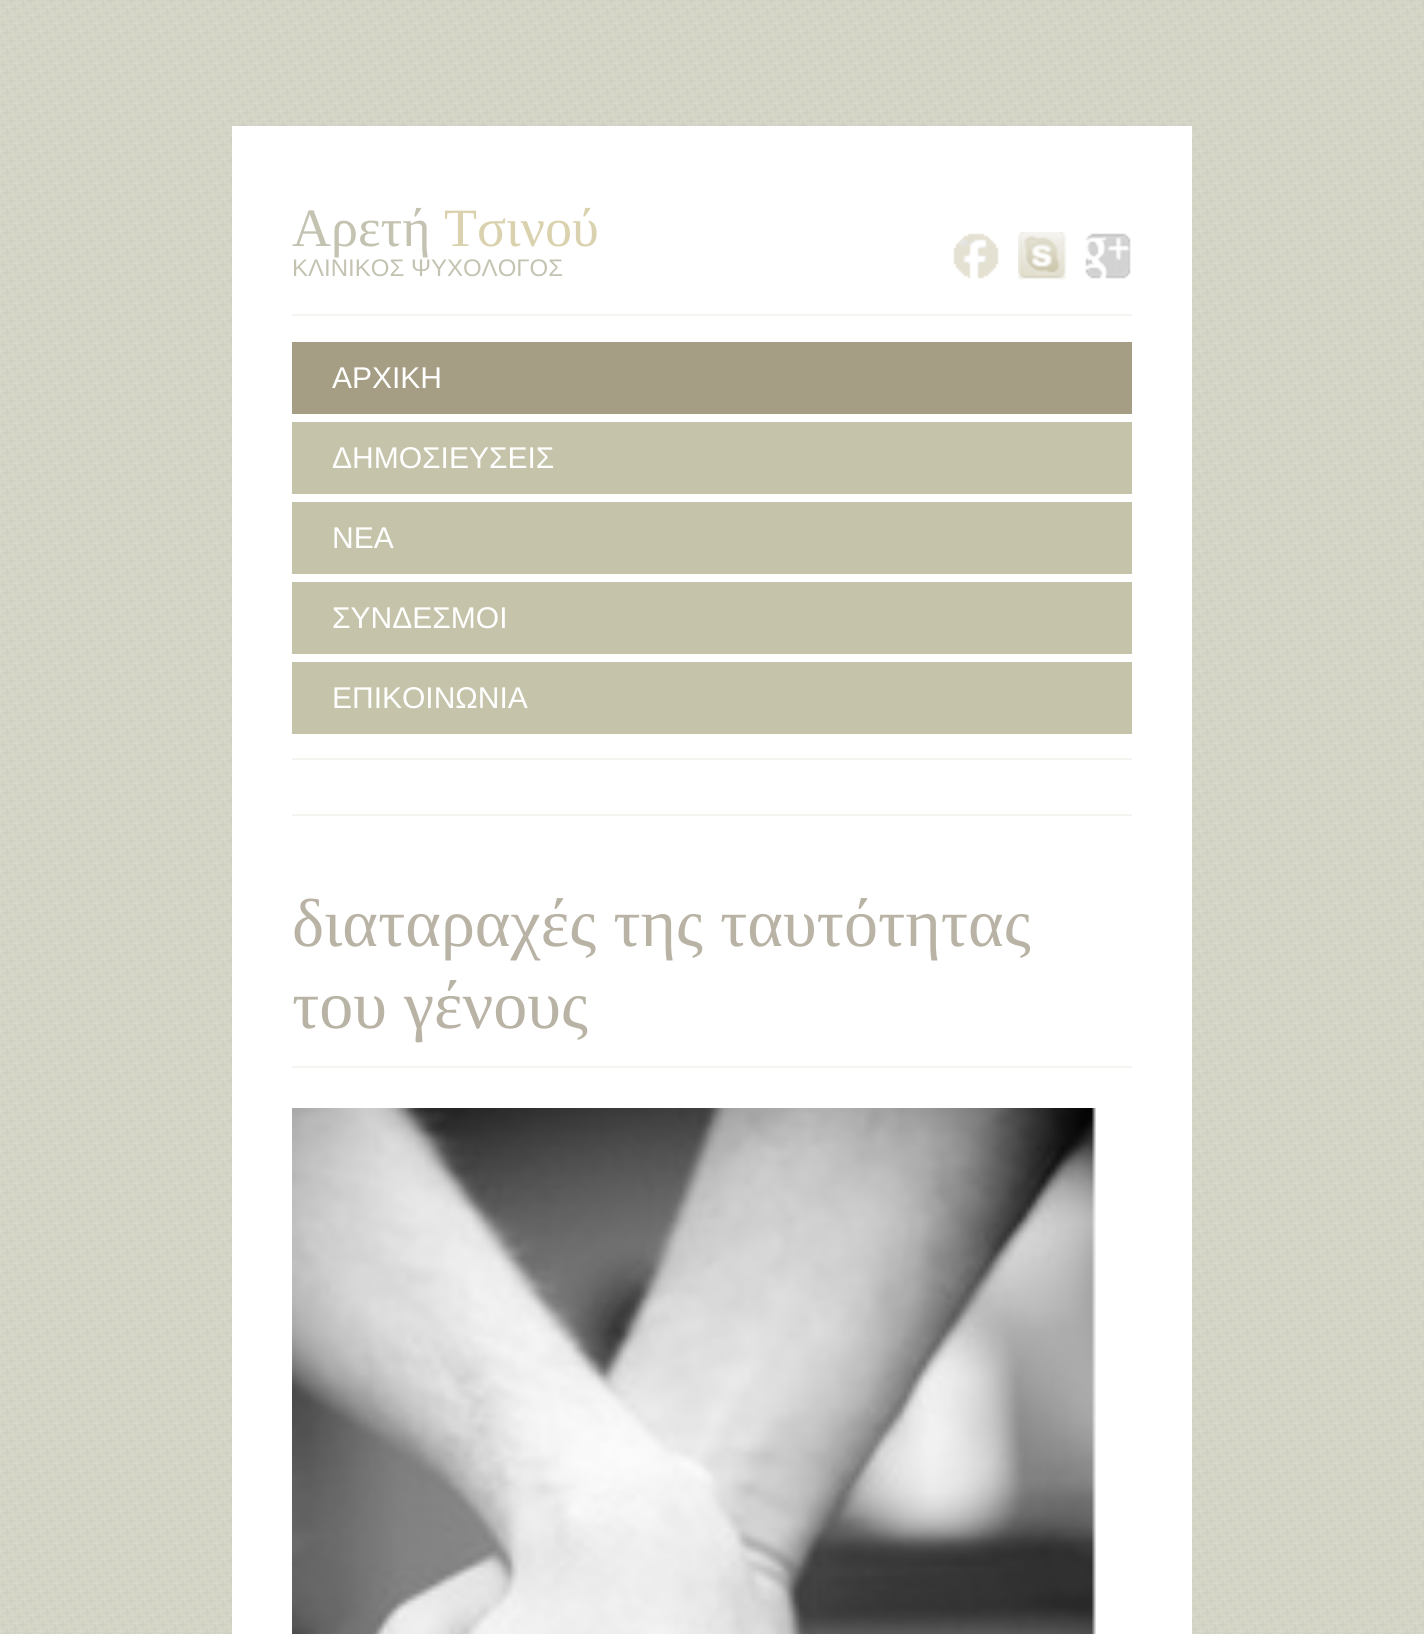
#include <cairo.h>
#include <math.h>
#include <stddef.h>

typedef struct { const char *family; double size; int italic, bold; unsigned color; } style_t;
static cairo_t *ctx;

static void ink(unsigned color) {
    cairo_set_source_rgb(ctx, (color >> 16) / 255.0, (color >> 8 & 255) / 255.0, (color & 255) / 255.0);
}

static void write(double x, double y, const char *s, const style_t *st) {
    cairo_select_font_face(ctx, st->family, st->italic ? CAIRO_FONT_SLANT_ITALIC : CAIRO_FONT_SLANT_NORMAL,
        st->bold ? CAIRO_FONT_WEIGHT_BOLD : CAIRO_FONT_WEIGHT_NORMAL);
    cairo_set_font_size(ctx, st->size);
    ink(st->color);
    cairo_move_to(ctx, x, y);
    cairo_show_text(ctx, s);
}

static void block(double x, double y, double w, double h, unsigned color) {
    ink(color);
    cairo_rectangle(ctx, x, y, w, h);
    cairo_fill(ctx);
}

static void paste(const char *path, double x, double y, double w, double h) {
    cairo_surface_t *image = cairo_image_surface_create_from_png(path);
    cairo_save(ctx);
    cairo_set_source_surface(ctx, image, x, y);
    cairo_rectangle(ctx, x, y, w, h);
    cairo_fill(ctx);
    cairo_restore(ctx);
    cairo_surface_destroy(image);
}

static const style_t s1 = {"Liberation Serif", 54, 0, 0, 0xc4c3b2};
static const style_t s2 = {"Liberation Serif", 54, 0, 0, 0xdad2ae};
static const style_t s3 = {"Liberation Sans", 24, 0, 0, 0xc4c3b2};
static const style_t s4 = {"Liberation Sans", 30, 0, 0, 0xffffff};
static const style_t s5 = {"Liberation Serif", 68, 0, 0, 0xb8b3a5};

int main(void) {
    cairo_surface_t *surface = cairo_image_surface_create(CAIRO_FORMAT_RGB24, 1424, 1634);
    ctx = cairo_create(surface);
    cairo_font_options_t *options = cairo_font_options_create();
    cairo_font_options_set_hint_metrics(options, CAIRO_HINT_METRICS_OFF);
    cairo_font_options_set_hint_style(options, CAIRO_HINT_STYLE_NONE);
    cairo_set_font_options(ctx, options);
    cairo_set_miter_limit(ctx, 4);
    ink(0xffffff);
    cairo_paint(ctx);
    paste("pic1.png", 0, 0, 1424, 1634);
    block(232, 126, 960, 1508, 0xffffff);
    block(292, 814, 840, 2, 0xf5f4f1);
    block(292, 314, 840, 2, 0xf5f4f1);
    write(292, 246, "Αρετή", &s1);
    write(444, 246, "Τσινού", &s2);
    write(292, 276, "ΚΛΙΝΙΚΟΣ ΨΥΧΟΛΟΓΟΣ", &s3);
    block(292, 758, 840, 2, 0xf5f4f1);
    paste("pic2.png", 953, 233, 46, 46);
    paste("pic3.png", 1018, 232, 48, 48);
    paste("pic4.png", 1085, 233, 46, 46);
    block(292, 342, 840, 72, 0xa59d84);
    write(332, 388, "ΑΡΧΙΚΗ", &s4);
    block(292, 422, 840, 72, 0xc5c4aa);
    write(332, 468, "ΔΗΜΟΣΙΕΥΣΕΙΣ", &s4);
    block(292, 502, 840, 72, 0xc5c4aa);
    write(332, 548, "ΝΕΑ", &s4);
    block(292, 582, 840, 72, 0xc5c4aa);
    write(332, 628, "ΣΥΝΔΕΣΜΟΙ", &s4);
    block(292, 662, 840, 72, 0xc5c4aa);
    write(332, 708, "ΕΠΙΚΟΙΝΩΝΙΑ", &s4);
    block(292, 1066, 840, 2, 0xf5f4f1);
    write(292, 946, "διαταραχές της ταυτότητας", &s5);
    write(292, 1028, "του γένους", &s5);
    paste("pic5.png", 292, 1108, 804, 526);
    cairo_surface_write_to_png(surface, "screenshot.png");
    cairo_font_options_destroy(options);
    cairo_destroy(ctx);
    cairo_surface_destroy(surface);
    return 0;
}
